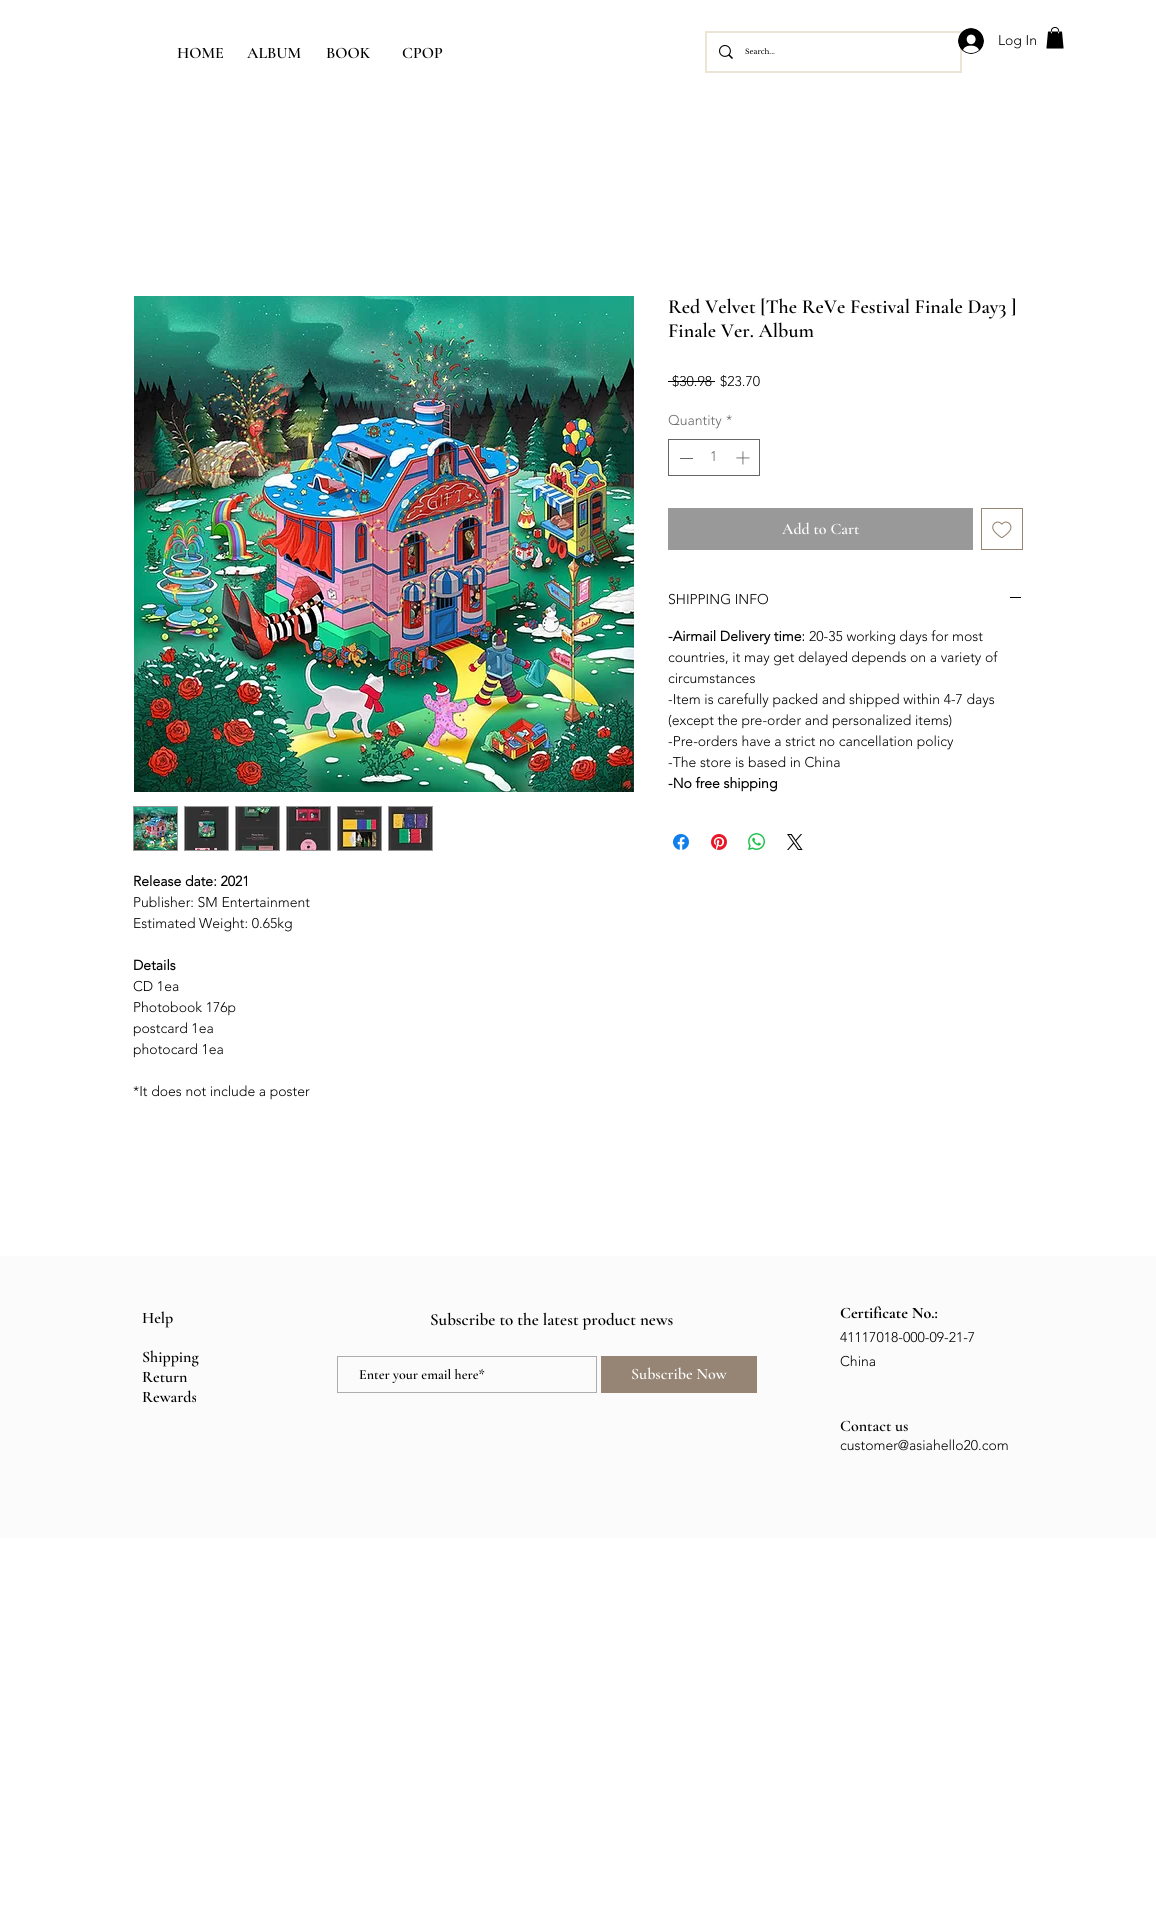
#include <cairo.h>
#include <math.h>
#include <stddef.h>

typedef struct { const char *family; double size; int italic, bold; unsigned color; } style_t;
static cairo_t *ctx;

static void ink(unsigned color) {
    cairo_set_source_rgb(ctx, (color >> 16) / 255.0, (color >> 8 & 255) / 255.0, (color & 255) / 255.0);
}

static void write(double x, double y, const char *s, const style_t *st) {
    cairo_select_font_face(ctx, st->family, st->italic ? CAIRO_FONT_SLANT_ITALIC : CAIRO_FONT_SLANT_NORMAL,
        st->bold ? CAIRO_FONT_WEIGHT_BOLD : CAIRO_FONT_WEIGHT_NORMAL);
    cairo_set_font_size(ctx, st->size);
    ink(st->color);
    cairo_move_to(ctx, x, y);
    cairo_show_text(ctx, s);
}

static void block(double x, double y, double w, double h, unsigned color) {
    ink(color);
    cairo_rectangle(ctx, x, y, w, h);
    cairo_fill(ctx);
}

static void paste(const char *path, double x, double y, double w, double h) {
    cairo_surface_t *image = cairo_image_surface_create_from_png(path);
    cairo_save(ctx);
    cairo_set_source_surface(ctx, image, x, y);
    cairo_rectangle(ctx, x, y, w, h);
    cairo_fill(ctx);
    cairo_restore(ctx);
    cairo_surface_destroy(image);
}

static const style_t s1 = {"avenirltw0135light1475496 Light", 14, 0, 0, 0x000000};
static const style_t s2 = {"Cormorant Garamond SemiBold", 16, 0, 0, 0x000000};
static const style_t s3 = {"Libre Baskerville", 7, 0, 0, 0x000000};
static const style_t s4 = {"Cormorant Garamond SemiBold", 20, 0, 0, 0x000000};
static const style_t s5 = {"avenirltw0135light1475496 Light", 14, 0, 0, 0x666666};
static const style_t s6 = {"Cormorant Garamond SemiBold", 16, 0, 0, 0xffffff};
static const style_t s7 = {"avenirltw0135light1475496", 14, 0, 1, 0x000000};
static const style_t s8 = {"Cormorant Garamond SemiBold", 17, 0, 0, 0x000000};
static const style_t s9 = {"Cormorant Garamond SemiBold", 14, 0, 0, 0x000000};
static const style_t s10 = {"Cormorant Garamond", 16, 0, 1, 0x000000};

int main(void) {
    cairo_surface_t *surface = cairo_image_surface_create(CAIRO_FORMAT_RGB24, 1156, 1918);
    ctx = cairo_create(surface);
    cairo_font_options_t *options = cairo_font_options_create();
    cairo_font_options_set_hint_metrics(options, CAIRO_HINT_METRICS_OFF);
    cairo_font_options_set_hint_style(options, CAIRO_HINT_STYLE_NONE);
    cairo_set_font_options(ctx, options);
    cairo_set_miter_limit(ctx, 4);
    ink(0xffffff);
    cairo_paint(ctx);
    cairo_rectangle(ctx, 706, 32, 255, 40);
    ink(0xebe5d6);
    cairo_stroke(ctx);
    paste("pic1.png", 958, 28, 26, 26);
    write(998, 45, "Log In", &s1);
    paste("pic2.png", 1046, 27, 18, 22);
    write(177, 58, "HOME", &s2);
    write(247, 58, "ALBUM", &s2);
    write(326, 58, "BOOK", &s2);
    write(402, 58, "CPOP", &s2);
    paste("pic3.png", 719, 45, 14, 14);
    write(745, 54, "Search...", &s3);
    write(668, 313, "Red Velvet [The ReVe Festival Finale Day3 ]", &s4);
    write(668, 337, "Finale Ver. Album", &s4);
    write(672, 386, "$30.98", &s1);
    block(668, 381, 47, 1, 0x000000);
    write(720, 386, "$23.70", &s1);
    write(668, 425, "Quantity", &s5);
    write(726, 425, "*", &s5);
    cairo_rectangle(ctx, 668.5, 439.5, 91, 36);
    cairo_set_line_width(ctx, 1);
    cairo_stroke(ctx);
    block(680, 458, 13, 1, 0x666666);
    write(710, 461, "1", &s5);
    paste("pic4.png", 736, 451, 14, 14);
    block(668, 508, 305, 42, 0x999999);
    write(782, 534, "Add to Cart", &s6);
    cairo_rectangle(ctx, 981.5, 508.5, 41, 41);
    ink(0x968575);
    cairo_stroke(ctx);
    paste("pic5.png", 992, 521, 20, 17);
    write(668, 604, "SHIPPING INFO", &s1);
    block(1010, 597, 11, 1, 0x000000);
    write(668, 641, "-Airmail Delivery time:", &s7);
    write(809, 641, "20-35 working days for most", &s1);
    write(668, 662, "countries, it may get delayed depends on a variety of", &s1);
    write(668, 683, "circumstances", &s1);
    write(668, 704, "-Item is carefully packed and shipped within 4-7 days", &s1);
    write(668, 725, "(except the pre-order and personalized items)", &s1);
    write(668, 746, "-Pre-orders have a strict no cancellation policy", &s1);
    write(668, 767, "-The store is based in China", &s1);
    write(668, 788, "-No free shipping", &s7);
    paste("pic6.png", 673, 834, 16, 16);
    paste("pic7.png", 711, 834, 16, 16);
    paste("pic8.png", 748, 833, 17, 17);
    paste("pic9.png", 787, 834, 16, 16);
    paste("pic10.png", 134, 296, 500, 496);
    block(133, 806, 45, 45, 0x999999);
    paste("pic11.png", 134, 807, 43, 43);
    block(184, 806, 45, 45, 0x999999);
    paste("pic12.png", 185, 807, 43, 43);
    block(235, 806, 45, 45, 0x999999);
    paste("pic13.png", 236, 807, 43, 43);
    block(286, 806, 45, 45, 0x999999);
    paste("pic14.png", 287, 807, 43, 43);
    block(337, 806, 45, 45, 0x999999);
    paste("pic15.png", 338, 807, 43, 43);
    block(388, 806, 45, 45, 0x999999);
    paste("pic16.png", 389, 807, 43, 43);
    write(133, 886, "Release date: 2021", &s7);
    write(133, 907, "Publisher: SM Entertainment", &s1);
    write(133, 928, "Estimated Weight: 0.65kg", &s1);
    write(133, 970, "Details", &s7);
    write(133, 991, "CD 1ea", &s1);
    write(133, 1012, "Photobook 176p", &s1);
    write(133, 1033, "postcard 1ea", &s1);
    write(133, 1054, "photocard 1ea", &s1);
    write(133, 1096, "*It does not include a poster", &s1);
    block(0, 1256, 1156, 282, 0xfbfbfb);
    write(142, 1323, "Help", &s2);
    write(142, 1362, "Shipping", &s2);
    write(142, 1382, "Return", &s2);
    write(142, 1402, "Rewards", &s2);
    write(430, 1325, "Subscribe to the latest product news", &s8);
    cairo_rectangle(ctx, 337.5, 1356.5, 259, 36);
    ink(0xadadad);
    cairo_stroke(ctx);
    write(359, 1379, "Enter your email here*", &s9);
    block(601, 1356, 156, 37, 0x968575);
    write(631, 1379, "Subscribe Now", &s6);
    write(840, 1318, "Certificate No.:", &s10);
    write(840, 1342, "41117018-000-09-21-7", &s1);
    write(840, 1366, "China", &s1);
    write(840, 1431, "Contact us", &s2);
    write(840, 1450, "customer@asiahello20.com", &s1);
    cairo_surface_write_to_png(surface, "screenshot.png");
    cairo_font_options_destroy(options);
    cairo_destroy(ctx);
    cairo_surface_destroy(surface);
    return 0;
}
